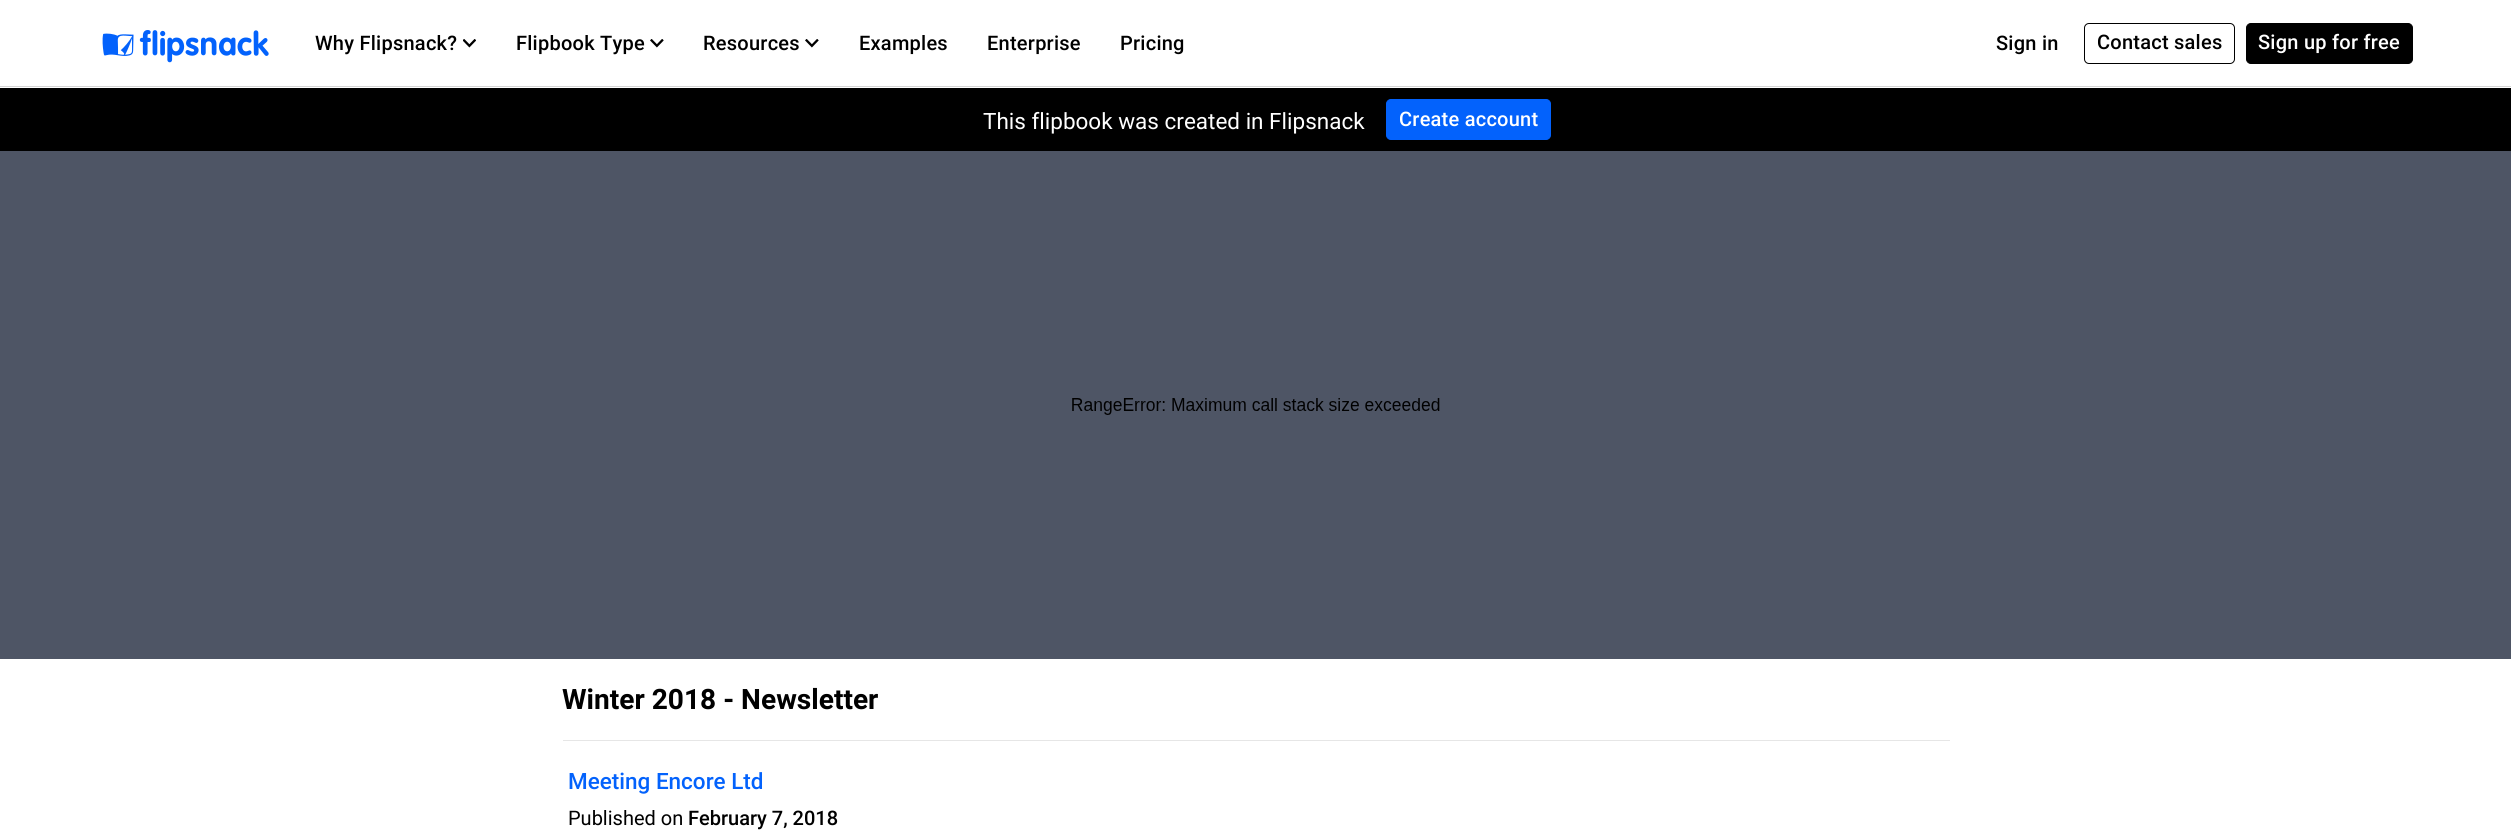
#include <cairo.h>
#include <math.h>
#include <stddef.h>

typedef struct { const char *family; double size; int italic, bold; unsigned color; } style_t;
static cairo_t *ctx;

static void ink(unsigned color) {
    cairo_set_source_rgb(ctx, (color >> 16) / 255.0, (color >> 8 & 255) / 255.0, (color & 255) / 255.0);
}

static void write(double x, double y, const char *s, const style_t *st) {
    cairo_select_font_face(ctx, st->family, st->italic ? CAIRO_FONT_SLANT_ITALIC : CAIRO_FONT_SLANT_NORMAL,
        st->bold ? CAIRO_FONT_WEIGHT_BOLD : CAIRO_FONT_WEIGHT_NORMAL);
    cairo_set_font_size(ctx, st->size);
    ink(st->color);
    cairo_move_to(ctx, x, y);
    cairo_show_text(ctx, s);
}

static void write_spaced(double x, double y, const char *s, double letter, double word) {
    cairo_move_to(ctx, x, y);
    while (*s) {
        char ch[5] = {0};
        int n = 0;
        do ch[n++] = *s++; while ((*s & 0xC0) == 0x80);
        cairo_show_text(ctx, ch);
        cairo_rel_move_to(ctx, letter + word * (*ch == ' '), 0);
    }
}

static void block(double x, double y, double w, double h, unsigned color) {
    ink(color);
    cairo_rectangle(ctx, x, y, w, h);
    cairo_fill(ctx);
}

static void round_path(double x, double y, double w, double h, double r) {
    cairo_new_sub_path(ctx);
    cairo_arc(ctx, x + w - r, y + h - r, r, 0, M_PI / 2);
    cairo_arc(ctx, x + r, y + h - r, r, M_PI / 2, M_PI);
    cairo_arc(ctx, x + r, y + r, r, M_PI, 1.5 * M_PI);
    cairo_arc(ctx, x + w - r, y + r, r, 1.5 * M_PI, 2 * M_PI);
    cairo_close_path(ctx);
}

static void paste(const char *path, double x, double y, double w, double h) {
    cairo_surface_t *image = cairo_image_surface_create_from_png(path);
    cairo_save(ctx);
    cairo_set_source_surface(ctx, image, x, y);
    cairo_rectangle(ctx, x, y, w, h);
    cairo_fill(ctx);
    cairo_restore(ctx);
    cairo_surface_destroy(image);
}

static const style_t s1 = {"Roboto", 22.5, 0, 0, 0xffffff};
static const style_t s2 = {"Roboto", 28.1, 0, 1, 0x000000};
static const style_t s3 = {"Roboto Medium", 22.5, 0, 0, 0x0362fc};
static const style_t s4 = {"Roboto", 20, 0, 0, 0x000000};
static const style_t s5 = {"Roboto Medium", 20, 0, 0, 0x000000};

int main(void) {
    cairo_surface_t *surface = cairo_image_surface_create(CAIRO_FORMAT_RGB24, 2511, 838);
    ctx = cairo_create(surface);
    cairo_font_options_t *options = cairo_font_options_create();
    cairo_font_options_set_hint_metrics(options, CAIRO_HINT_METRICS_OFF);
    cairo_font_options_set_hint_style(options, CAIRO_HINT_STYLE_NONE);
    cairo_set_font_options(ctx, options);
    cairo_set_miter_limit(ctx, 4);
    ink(0xffffff);
    cairo_paint(ctx);
    block(0, 86, 2511, 1, 0xd5d5d5);
    paste("pic1.png", 102, 30, 167, 33);
    cairo_select_font_face(ctx, "Roboto Medium", CAIRO_FONT_SLANT_NORMAL, CAIRO_FONT_WEIGHT_NORMAL);
    cairo_set_font_size(ctx, 20);
    ink(0x000000);
    write_spaced(315, 50, "Why Flipsnack?", 0.25, 0);
    paste("pic2.png", 463, 39, 13, 9);
    write_spaced(516, 50, "Flipbook Type", 0.25, 0);
    paste("pic3.png", 650, 39, 14, 9);
    write_spaced(703, 50, "Resources", 0.25, 0);
    paste("pic3.png", 805, 39, 14, 9);
    write_spaced(859, 50, "Examples", 0.25, 0);
    write_spaced(987, 50, "Enterprise", 0.25, 0);
    write_spaced(1120, 50, "Pricing", 0.25, 0);
    write_spaced(1996, 50, "Sign in", 0.25, 0);
    round_path(2084.5, 23.5, 150, 40, 4.5);
    cairo_set_line_width(ctx, 1);
    cairo_stroke(ctx);
    write_spaced(2097, 49, "Contact sales", 0.25, 0);
    round_path(2246.5, 23.5, 166, 40, 4.5);
    cairo_fill_preserve(ctx);
    cairo_stroke(ctx);
    ink(0xffffff);
    write_spaced(2258, 49, "Sign up for free", 0.25, 0);
    block(0, 88, 2511, 63, 0x000000);
    write(983, 129, "This flipbook was created in Flipsnack", &s1);
    ink(0x0362fc);
    round_path(1386.5, 99.5, 164, 40, 4.5);
    cairo_fill_preserve(ctx);
    cairo_stroke(ctx);
    cairo_select_font_face(ctx, "Roboto Medium", CAIRO_FONT_SLANT_NORMAL, CAIRO_FONT_WEIGHT_NORMAL);
    cairo_set_font_size(ctx, 20);
    ink(0xffffff);
    write_spaced(1399, 126, "Create account", 0.25, 0);
    block(0, 151, 2511, 508, 0x4e5565);
    paste("pic4.png", 1072, 398, 368, 17);
    write(562, 709, "Winter 2018 - Newsletter", &s2);
    block(563, 740, 1387, 1, 0xe6e6e6);
    write(568, 789, "Meeting Encore Ltd", &s3);
    write(568, 825, "Published on", &s4);
    write(688, 825, "February 7, 2018", &s5);
    cairo_surface_write_to_png(surface, "screenshot.png");
    cairo_font_options_destroy(options);
    cairo_destroy(ctx);
    cairo_surface_destroy(surface);
    return 0;
}
